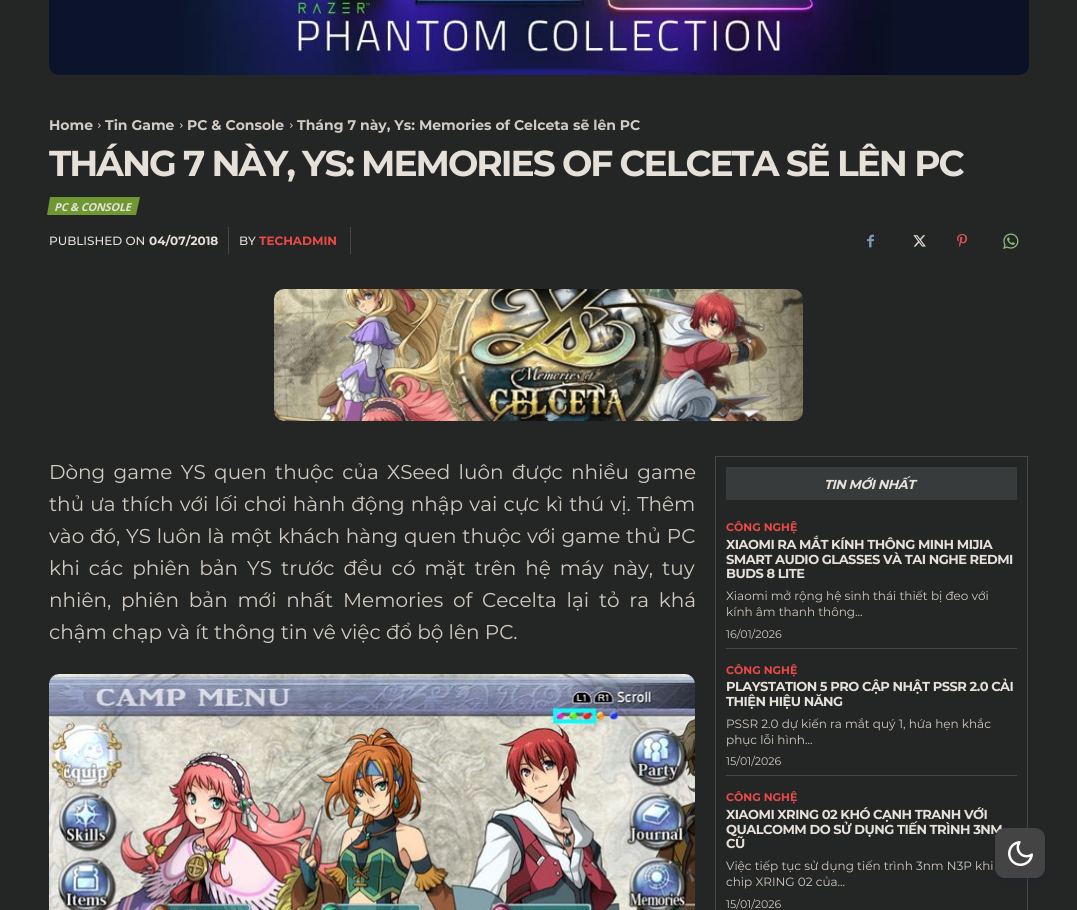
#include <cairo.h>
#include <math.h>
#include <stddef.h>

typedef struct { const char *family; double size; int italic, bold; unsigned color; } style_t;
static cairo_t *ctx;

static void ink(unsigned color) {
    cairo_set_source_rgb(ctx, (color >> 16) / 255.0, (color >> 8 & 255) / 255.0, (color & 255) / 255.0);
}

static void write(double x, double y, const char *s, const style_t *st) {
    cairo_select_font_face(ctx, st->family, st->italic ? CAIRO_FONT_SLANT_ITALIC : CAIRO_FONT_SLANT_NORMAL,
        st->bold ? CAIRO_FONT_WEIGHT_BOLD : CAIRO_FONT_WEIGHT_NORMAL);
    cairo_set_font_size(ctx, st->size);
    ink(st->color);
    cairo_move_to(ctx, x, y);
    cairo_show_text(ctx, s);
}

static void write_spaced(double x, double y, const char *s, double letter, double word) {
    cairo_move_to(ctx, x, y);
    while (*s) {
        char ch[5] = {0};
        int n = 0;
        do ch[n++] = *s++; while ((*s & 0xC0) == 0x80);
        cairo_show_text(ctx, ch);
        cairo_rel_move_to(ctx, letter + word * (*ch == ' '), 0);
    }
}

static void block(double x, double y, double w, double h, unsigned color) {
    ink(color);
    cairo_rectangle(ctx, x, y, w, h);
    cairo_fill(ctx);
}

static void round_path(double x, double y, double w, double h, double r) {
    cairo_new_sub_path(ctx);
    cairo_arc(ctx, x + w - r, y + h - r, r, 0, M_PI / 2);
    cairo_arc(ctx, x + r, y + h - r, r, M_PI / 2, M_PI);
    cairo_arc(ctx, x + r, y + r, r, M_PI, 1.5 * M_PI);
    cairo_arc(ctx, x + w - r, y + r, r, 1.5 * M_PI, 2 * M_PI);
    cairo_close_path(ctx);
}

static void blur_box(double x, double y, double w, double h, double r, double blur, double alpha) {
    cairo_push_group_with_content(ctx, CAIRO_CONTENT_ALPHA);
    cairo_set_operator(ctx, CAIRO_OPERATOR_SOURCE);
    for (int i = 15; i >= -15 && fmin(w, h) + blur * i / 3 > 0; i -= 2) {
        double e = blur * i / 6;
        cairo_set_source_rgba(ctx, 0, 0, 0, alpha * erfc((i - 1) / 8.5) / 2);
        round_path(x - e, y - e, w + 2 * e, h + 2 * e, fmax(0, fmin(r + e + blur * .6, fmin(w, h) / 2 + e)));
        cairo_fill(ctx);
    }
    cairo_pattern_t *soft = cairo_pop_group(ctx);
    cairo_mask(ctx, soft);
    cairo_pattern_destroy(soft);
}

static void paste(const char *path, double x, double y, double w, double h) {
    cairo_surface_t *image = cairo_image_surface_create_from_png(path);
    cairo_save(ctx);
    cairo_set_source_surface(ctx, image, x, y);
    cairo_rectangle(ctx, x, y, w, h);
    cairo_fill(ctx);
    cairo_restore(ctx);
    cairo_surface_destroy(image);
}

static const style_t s1 = {"Montserrat", 14, 0, 1, 0xd1cbc1};
static const style_t s2 = {"Montserrat Medium", 12, 0, 0, 0xe5e0d8};
static const style_t s3 = {"Montserrat", 12, 0, 1, 0xe5e0d8};
static const style_t s4 = {"Montserrat", 12, 0, 1, 0xea4a47};
static const style_t s5 = {"Montserrat", 20, 0, 0, 0xd1cbc1};
static const style_t s6 = {"Montserrat", 11, 0, 1, 0xea4a47};
static const style_t s7 = {"Montserrat", 12, 0, 0, 0xd1cbc1};
static const style_t s8 = {"Montserrat", 11, 0, 0, 0xd1cbc1};

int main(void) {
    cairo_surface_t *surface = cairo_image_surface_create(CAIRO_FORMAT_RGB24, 1077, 910);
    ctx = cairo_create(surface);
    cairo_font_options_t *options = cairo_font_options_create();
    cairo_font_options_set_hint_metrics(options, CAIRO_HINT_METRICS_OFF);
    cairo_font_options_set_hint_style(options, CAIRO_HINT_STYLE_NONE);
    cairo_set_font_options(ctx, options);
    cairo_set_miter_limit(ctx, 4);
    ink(0x242525);
    cairo_paint(ctx);
    paste("pic1.png", 49, 0, 980, 75);
    write(49, 130, "Home", &s1);
    paste("pic2.png", 98, 123, 3, 5);
    write(105, 130, "Tin Game", &s1);
    paste("pic2.png", 180, 123, 3, 5);
    write(187, 130, "PC & Console", &s1);
    paste("pic2.png", 290, 123, 3, 5);
    write(297, 130, "Tháng 7 này, Ys: Memories of Celceta sẽ lên PC", &s1);
    cairo_set_font_size(ctx, 36);
    ink(0xe5e0d8);
    write_spaced(49, 176, "THÁNG 7 NÀY, YS: MEMORIES OF CELCETA SẼ LÊN PC", -2, 0);
    ink(0x6f9832);
    cairo_new_path(ctx);
    cairo_move_to(ctx, 50, 197);
    cairo_line_to(ctx, 140, 197);
    cairo_line_to(ctx, 136, 215);
    cairo_line_to(ctx, 47, 215);
    cairo_close_path(ctx);
    cairo_fill(ctx);
    cairo_select_font_face(ctx, "Open Sans", CAIRO_FONT_SLANT_ITALIC, CAIRO_FONT_WEIGHT_BOLD);
    cairo_set_font_size(ctx, 11);
    ink(0xe5e0d8);
    write_spaced(54, 211, "PC & CONSOLE", -0.25, 0);
    block(228, 227, 1, 27, 0x454847);
    write(49, 245, "PUBLISHED ON", &s2);
    write(149, 245, "04/07/2018", &s3);
    block(350, 227, 1, 27, 0x454847);
    write(239, 245, "BY", &s2);
    write(259, 245, "TECHADMIN", &s4);
    paste("pic3.png", 867, 234, 7, 14);
    paste("pic4.png", 913, 235, 13, 12);
    paste("pic5.png", 957, 233, 11, 14);
    paste("pic6.png", 1003, 233, 16, 16);
    paste("pic7.png", 274, 289, 529, 132);
    cairo_select_font_face(ctx, "Montserrat", CAIRO_FONT_SLANT_NORMAL, CAIRO_FONT_WEIGHT_NORMAL);
    cairo_set_font_size(ctx, 20);
    ink(0xd1cbc1);
    write_spaced(49, 479, "Dòng game YS quen thuộc của XSeed luôn được nhiều game", 0, 3.1);
    write_spaced(49, 511, "thủ ưa thích với lối chơi hành động nhập vai cực kì thú vị. Thêm", 0, 0.9);
    write_spaced(49, 543, "vào đó, YS luôn là một khách hàng quen thuộc với game thủ PC", 0, 0.5);
    write_spaced(49, 575, "khi các phiên bản YS trước đều có mặt trên hệ máy này, tuy", 0, 3.75);
    write_spaced(49, 607, "nhiên, phiên bản mới nhất Memories of Cecelta lại tỏ ra khá", 0, 4.5);
    write(49, 639, "chậm chạp và ít thông tin vê việc đổ bộ lên PC.", &s5);
    paste("pic8.png", 49, 674, 646, 236);
    cairo_rectangle(ctx, 715.5, 456.5, 312, 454);
    ink(0x454847);
    cairo_set_line_width(ctx, 1);
    cairo_stroke(ctx);
    block(726, 467, 291, 33, 0x383b3b);
    cairo_select_font_face(ctx, "Montserrat", CAIRO_FONT_SLANT_ITALIC, CAIRO_FONT_WEIGHT_BOLD);
    cairo_set_font_size(ctx, 13);
    ink(0xe5e0d8);
    write_spaced(824, 489, "TIN MỚI NHẤT", -0.5, 0);
    write(726, 531, "CÔNG NGHỆ", &s6);
    cairo_set_font_size(ctx, 13);
    ink(0xe5e0d8);
    write_spaced(726, 549, "XIAOMI RA MẮT KÍNH THÔNG MINH MIJIA", -0.5, 0);
    write_spaced(726, 564, "SMART AUDIO GLASSES VÀ TAI NGHE REDMI", -0.5, 0);
    write_spaced(726, 578, "BUDS 8 LITE", -0.5, 0);
    write(726, 600, "Xiaomi mở rộng hệ sinh thái thiết bị đeo với", &s7);
    write(726, 616, "kính âm thanh thông...", &s7);
    write(726, 638, "16/01/2026", &s8);
    block(726, 648, 291, 1, 0x454847);
    write(726, 674, "CÔNG NGHỆ", &s6);
    cairo_set_font_size(ctx, 13);
    ink(0xe5e0d8);
    write_spaced(726, 691, "PLAYSTATION 5 PRO CẬP NHẬT PSSR 2.0 CẢI", -0.5, 0);
    write_spaced(726, 706, "THIỆN HIỆU NĂNG", -0.5, 0);
    write(726, 728, "PSSR 2.0 dự kiến ra mắt quý 1, hứa hẹn khắc", &s7);
    write(726, 744, "phục lỗi hình...", &s7);
    write(726, 765, "15/01/2026", &s8);
    block(726, 775, 291, 1, 0x454847);
    write(726, 801, "CÔNG NGHỆ", &s6);
    cairo_set_font_size(ctx, 13);
    ink(0xe5e0d8);
    write_spaced(726, 819, "XIAOMI XRING 02 KHÓ CẠNH TRANH VỚI", -0.5, 0);
    write_spaced(726, 834, "QUALCOMM DO SỬ DỤNG TIẾN TRÌNH 3NM", -0.5, 0);
    write_spaced(726, 848, "CŨ", -0.5, 0);
    write(726, 870, "Việc tiếp tục sử dụng tiến trình 3nm N3P khi", &s7);
    write(726, 886, "chip XRING 02 của...", &s7);
    write(726, 908, "15/01/2026", &s8);
    round_path(994.5, 827.5, 51, 51, 10.5);
    cairo_set_source_rgba(ctx, 0.035, 0.118, 0.259, 0.08);
    cairo_stroke(ctx);
    ink(0x091e42);
    blur_box(997, 834, 46, 46, 8, 4, 0.25);
    ink(0x444444);
    round_path(995, 828, 50, 50, 10);
    cairo_fill(ctx);
    paste("pic9.png", 1008, 841, 25, 25);
    cairo_surface_write_to_png(surface, "screenshot.png");
    cairo_font_options_destroy(options);
    cairo_destroy(ctx);
    cairo_surface_destroy(surface);
    return 0;
}
